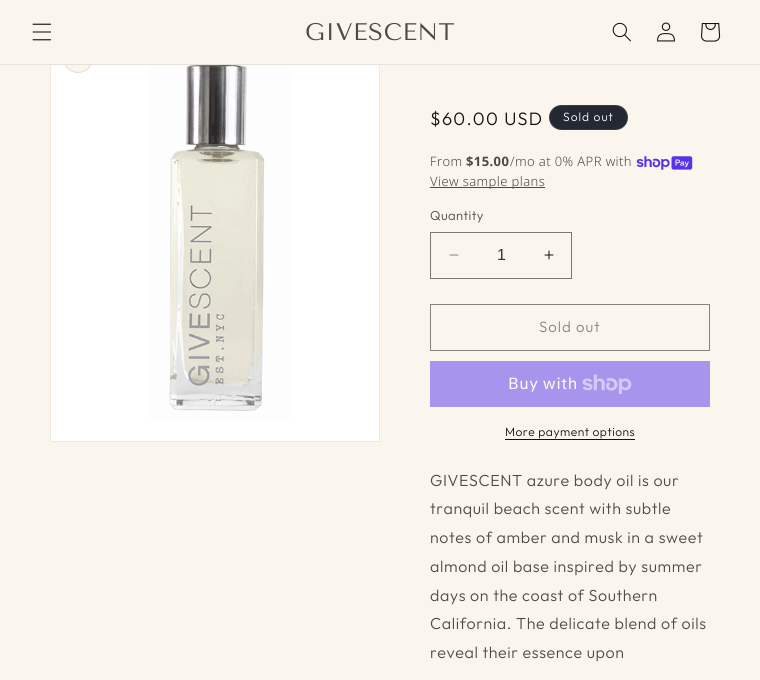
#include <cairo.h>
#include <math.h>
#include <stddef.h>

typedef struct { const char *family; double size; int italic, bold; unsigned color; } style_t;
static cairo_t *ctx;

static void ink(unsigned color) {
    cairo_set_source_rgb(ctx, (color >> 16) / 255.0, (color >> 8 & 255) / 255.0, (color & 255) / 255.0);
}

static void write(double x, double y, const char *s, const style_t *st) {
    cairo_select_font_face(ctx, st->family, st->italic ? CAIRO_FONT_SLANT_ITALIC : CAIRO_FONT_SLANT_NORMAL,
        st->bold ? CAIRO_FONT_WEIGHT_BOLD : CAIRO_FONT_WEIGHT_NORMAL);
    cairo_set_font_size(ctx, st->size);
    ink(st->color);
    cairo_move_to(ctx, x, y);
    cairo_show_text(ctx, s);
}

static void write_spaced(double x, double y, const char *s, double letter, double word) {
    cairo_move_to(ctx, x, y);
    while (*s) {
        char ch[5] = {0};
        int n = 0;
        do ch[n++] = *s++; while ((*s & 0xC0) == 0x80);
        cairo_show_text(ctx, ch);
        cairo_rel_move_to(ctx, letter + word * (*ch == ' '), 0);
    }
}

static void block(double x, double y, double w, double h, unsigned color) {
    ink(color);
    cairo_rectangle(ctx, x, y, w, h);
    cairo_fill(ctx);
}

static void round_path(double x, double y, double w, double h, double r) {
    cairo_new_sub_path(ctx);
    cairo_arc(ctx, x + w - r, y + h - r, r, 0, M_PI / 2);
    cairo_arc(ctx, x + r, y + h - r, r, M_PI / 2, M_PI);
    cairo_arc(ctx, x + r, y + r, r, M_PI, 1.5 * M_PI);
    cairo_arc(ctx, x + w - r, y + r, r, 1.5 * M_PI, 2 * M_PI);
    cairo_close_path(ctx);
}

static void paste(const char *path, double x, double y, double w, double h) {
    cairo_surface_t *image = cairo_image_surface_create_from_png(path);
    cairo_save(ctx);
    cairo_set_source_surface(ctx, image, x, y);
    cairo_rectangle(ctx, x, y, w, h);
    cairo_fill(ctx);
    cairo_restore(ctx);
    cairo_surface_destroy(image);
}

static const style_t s1 = {"Liberation Sans", 16, 0, 0, 0x353433};

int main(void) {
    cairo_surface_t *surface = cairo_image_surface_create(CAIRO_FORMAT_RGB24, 760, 680);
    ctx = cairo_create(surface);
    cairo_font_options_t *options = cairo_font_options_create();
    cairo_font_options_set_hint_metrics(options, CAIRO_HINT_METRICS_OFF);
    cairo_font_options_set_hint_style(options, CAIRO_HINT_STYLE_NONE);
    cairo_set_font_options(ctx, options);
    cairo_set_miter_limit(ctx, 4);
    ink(0xfaf5ed);
    cairo_paint(ctx);
    cairo_rectangle(ctx, 50.5, 30.5, 329, 411);
    ink(0xeeeae2);
    cairo_set_line_width(ctx, 1);
    cairo_stroke(ctx);
    paste("pic5.png", 51, 65, 328, 376);
    ink(0xfaf5ed);
    cairo_arc(ctx, 78, 58, 15, 0, 2 * M_PI);
    cairo_fill(ctx);
    cairo_arc(ctx, 78, 58, 14.5, 0, 2 * M_PI);
    cairo_set_source_rgba(ctx, 0.071, 0.071, 0.071, 0.1);
    cairo_stroke(ctx);
    block(50, 30, 330, 34, 0xfaf5ed);
    block(0, 64, 760, 1, 0xe7e3db);
    paste("pic1.png", 32, 23, 20, 18);
    cairo_select_font_face(ctx, "Tenor Sans", CAIRO_FONT_SLANT_NORMAL, CAIRO_FONT_WEIGHT_NORMAL);
    cairo_set_font_size(ctx, 24);
    ink(0x4c4b49);
    write_spaced(305, 40, "GIVESCENT", 0.6, 0);
    paste("pic2.png", 612, 22, 19, 20);
    paste("pic3.png", 657, 22, 18, 20);
    paste("pic4.png", 701, 23, 20, 19);
    cairo_select_font_face(ctx, "Outfit Light", CAIRO_FONT_SLANT_NORMAL, CAIRO_FONT_WEIGHT_NORMAL);
    cairo_set_font_size(ctx, 18);
    ink(0x121212);
    write_spaced(430, 125, "$60.00 USD", 1.25, 0);
    ink(0x242833);
    round_path(549, 105, 79, 25, 12.5);
    cairo_fill(ctx);
    round_path(549.5, 105.5, 78, 24, 12);
    cairo_set_source_rgba(ctx, 1, 1, 1, 0.1);
    cairo_stroke(ctx);
    cairo_set_font_size(ctx, 12);
    ink(0xffffff);
    write_spaced(563, 121, "Sold out", 1, 0);
    cairo_select_font_face(ctx, "Noto Sans Light", CAIRO_FONT_SLANT_NORMAL, CAIRO_FONT_WEIGHT_NORMAL);
    cairo_set_font_size(ctx, 13);
    ink(0x4c4b49);
    write_spaced(430, 166, "From", 0.4, 0);
    cairo_select_font_face(ctx, "Noto Sans", CAIRO_FONT_SLANT_NORMAL, CAIRO_FONT_WEIGHT_BOLD);
    write_spaced(466, 166, "$15.00", 0.4, 0);
    cairo_select_font_face(ctx, "Noto Sans Light", CAIRO_FONT_SLANT_NORMAL, CAIRO_FONT_WEIGHT_NORMAL);
    write_spaced(510, 166, "/mo at 0% APR with", 0.4, 0);
    paste("pic6.png", 636, 156, 57, 14);
    block(430, 187, 115, 1, 0x4c4b49);
    write_spaced(430, 186, "View sample plans", 0.4, 0);
    cairo_select_font_face(ctx, "Outfit Light", CAIRO_FONT_SLANT_NORMAL, CAIRO_FONT_WEIGHT_NORMAL);
    write_spaced(430, 220, "Quantity", 0.4, 0);
    paste("pic7.png", 449, 254, 10, 2);
    paste("pic8.png", 544, 250, 10, 10);
    cairo_rectangle(ctx, 430.5, 232.5, 141, 46);
    ink(0x7a7875);
    cairo_stroke(ctx);
    write(497, 260, "1", &s1);
    cairo_rectangle(ctx, 430.5, 304.5, 279, 46);
    ink(0x868480);
    cairo_stroke(ctx);
    cairo_select_font_face(ctx, "Outfit Light", CAIRO_FONT_SLANT_NORMAL, CAIRO_FONT_WEIGHT_NORMAL);
    cairo_set_font_size(ctx, 15);
    write_spaced(539, 332, "Sold out", 1, 0);
    block(430, 361, 280, 46, 0xa794ec);
    cairo_select_font_face(ctx, "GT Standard", CAIRO_FONT_SLANT_NORMAL, CAIRO_FONT_WEIGHT_NORMAL);
    cairo_set_font_size(ctx, 16);
    ink(0xfdfaf6);
    write_spaced(508, 389, "Buy with", 0.6, 0);
    paste("pic9.png", 582, 374, 50, 20);
    cairo_select_font_face(ctx, "Outfit Light", CAIRO_FONT_SLANT_NORMAL, CAIRO_FONT_WEIGHT_NORMAL);
    cairo_set_font_size(ctx, 12);
    ink(0x121212);
    write_spaced(505, 436, "More payment options", 0.5, 0);
    block(505, 439, 130, 1, 0x121212);
    cairo_set_font_size(ctx, 16);
    ink(0x4c4b49);
    write_spaced(430, 486, "GIVESCENT azure body oil is our", 0.6, 0);
    write_spaced(430, 514, "tranquil beach scent with subtle", 0.6, 0);
    write_spaced(430, 543, "notes of amber and musk in a sweet", 0.6, 0);
    write_spaced(430, 572, "almond oil base inspired by summer", 0.6, 0);
    write_spaced(430, 601, "days on the coast of Southern", 0.6, 0);
    write_spaced(430, 629, "California. The delicate blend of oils", 0.6, 0);
    write_spaced(430, 658, "reveal their essence upon", 0.6, 0);
    cairo_surface_write_to_png(surface, "screenshot.png");
    cairo_font_options_destroy(options);
    cairo_destroy(ctx);
    cairo_surface_destroy(surface);
    return 0;
}
